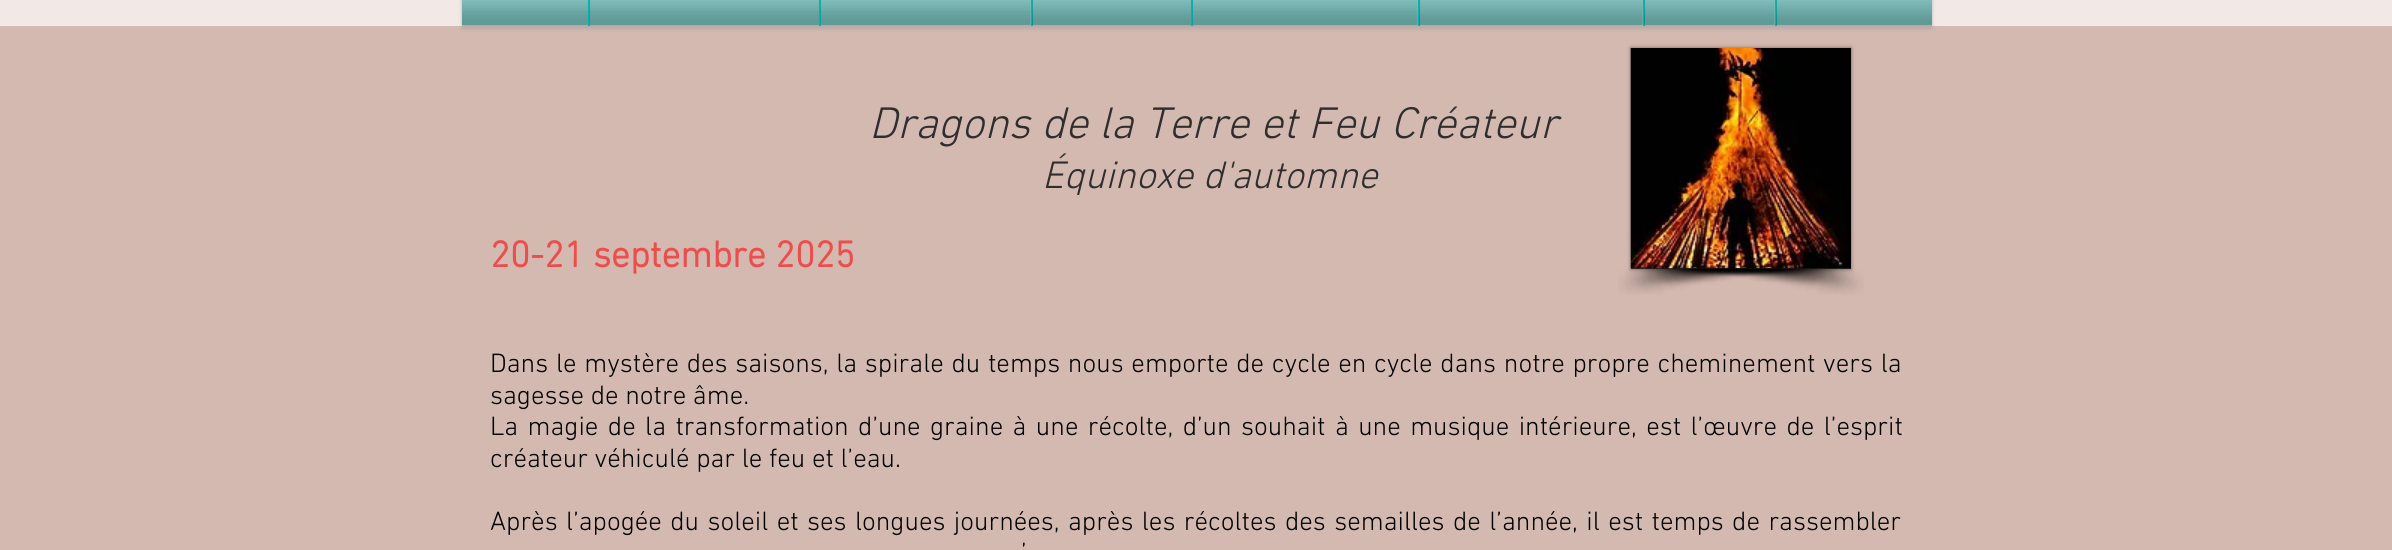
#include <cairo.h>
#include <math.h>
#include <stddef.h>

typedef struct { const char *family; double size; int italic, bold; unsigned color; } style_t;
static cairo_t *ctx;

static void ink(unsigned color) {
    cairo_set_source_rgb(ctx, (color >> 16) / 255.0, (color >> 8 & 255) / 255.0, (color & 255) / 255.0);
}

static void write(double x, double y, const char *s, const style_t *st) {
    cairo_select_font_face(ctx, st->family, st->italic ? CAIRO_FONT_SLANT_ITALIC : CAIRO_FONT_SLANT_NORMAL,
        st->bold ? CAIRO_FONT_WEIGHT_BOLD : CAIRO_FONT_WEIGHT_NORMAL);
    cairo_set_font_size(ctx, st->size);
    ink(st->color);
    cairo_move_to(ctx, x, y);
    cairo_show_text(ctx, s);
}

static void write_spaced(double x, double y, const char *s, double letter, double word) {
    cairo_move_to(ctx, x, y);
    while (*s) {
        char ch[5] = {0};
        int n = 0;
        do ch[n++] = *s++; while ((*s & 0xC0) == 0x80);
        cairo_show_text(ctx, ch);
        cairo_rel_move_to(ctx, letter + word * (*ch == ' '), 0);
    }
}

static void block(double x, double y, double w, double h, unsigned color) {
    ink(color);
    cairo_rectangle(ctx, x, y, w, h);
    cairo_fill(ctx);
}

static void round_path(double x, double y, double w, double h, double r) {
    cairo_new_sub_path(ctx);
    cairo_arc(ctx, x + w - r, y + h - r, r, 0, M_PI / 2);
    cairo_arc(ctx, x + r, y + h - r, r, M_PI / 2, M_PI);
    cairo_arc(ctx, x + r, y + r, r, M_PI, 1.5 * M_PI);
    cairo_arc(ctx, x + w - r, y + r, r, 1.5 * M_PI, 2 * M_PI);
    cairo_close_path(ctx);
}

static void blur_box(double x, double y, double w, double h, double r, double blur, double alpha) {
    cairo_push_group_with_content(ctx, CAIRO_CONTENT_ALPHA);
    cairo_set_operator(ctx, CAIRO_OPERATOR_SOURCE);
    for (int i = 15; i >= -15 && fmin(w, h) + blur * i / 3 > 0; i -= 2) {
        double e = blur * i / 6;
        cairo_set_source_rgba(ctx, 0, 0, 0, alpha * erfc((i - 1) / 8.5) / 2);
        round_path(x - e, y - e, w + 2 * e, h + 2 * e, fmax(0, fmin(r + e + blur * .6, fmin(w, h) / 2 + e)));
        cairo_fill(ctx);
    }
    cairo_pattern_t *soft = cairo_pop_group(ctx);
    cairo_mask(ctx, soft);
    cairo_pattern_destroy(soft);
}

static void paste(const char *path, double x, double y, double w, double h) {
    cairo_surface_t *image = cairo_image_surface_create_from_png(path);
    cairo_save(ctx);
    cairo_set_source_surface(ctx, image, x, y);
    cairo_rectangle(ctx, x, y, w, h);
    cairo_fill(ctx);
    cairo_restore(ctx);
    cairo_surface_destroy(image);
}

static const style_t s1 = {"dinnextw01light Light", 45, 1, 0, 0x2f2e2e};
static const style_t s2 = {"dinnextw01light Light", 39, 1, 0, 0x2f2e2e};
static const style_t s3 = {"dinnextw01light", 37.5, 0, 1, 0xec4d4d};
static const style_t s4 = {"dinnextw01light Light", 27, 0, 0, 0x000000};

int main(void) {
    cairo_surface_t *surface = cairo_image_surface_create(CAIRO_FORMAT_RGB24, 2392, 550);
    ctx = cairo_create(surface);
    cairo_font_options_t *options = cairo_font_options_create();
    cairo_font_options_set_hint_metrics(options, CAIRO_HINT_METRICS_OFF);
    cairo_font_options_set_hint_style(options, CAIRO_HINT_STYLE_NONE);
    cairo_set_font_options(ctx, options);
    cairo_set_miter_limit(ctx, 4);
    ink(0xd4b9b0);
    cairo_paint(ctx);
    block(0, 0, 2392, 26, 0xf2e9e7);
    cairo_save(ctx);
    cairo_set_fill_rule(ctx, CAIRO_FILL_RULE_EVEN_ODD);
    cairo_new_path(ctx);
    cairo_move_to(ctx, 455, 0);
    cairo_line_to(ctx, 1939, 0);
    cairo_line_to(ctx, 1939, 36);
    cairo_line_to(ctx, 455, 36);
    cairo_close_path(ctx);
    cairo_move_to(ctx, 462, -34);
    cairo_line_to(ctx, 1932, -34);
    cairo_line_to(ctx, 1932, 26);
    cairo_line_to(ctx, 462, 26);
    cairo_close_path(ctx);
    cairo_clip(ctx);
    ink(0xa29e9e);
    blur_box(462, -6, 1470, 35, 0, 2, 0.6);
    cairo_restore(ctx);
    cairo_set_source_rgba(ctx, 0.004, 0.694, 0.686, 0.25);
    cairo_rectangle(ctx, 462, 5, 1470, 21);
    cairo_fill(ctx);
    block(462, 0, 1470, 5, 0xbadddb);
    paste("pic1.png", 462, 0, 1470, 26);
    cairo_set_source_rgba(ctx, 0.004, 0.694, 0.686, 0.25);
    cairo_rectangle(ctx, 462, 0, 126, 26);
    cairo_fill(ctx);
    paste("pic2.png", 462, 0, 126, 11);
    paste("pic3.png", 462, 0, 126, 26);
    cairo_rectangle(ctx, 588, 0, 231, 26);
    cairo_fill(ctx);
    cairo_set_source_rgba(ctx, 0.004, 0.694, 0.686, 0.93);
    cairo_rectangle(ctx, 588, 0, 2, 26);
    cairo_fill(ctx);
    paste("pic4.png", 589, 0, 230, 11);
    paste("pic5.png", 589, 0, 230, 26);
    cairo_set_source_rgba(ctx, 0.004, 0.694, 0.686, 0.25);
    cairo_rectangle(ctx, 819, 0, 212, 26);
    cairo_fill(ctx);
    cairo_set_source_rgba(ctx, 0.004, 0.694, 0.686, 0.93);
    cairo_rectangle(ctx, 819, 0, 2, 26);
    cairo_fill(ctx);
    paste("pic6.png", 820, 0, 211, 11);
    paste("pic7.png", 820, 0, 211, 26);
    cairo_set_source_rgba(ctx, 0.004, 0.694, 0.686, 0.25);
    cairo_rectangle(ctx, 1031, 0, 160, 26);
    cairo_fill(ctx);
    cairo_set_source_rgba(ctx, 0.004, 0.694, 0.686, 0.93);
    cairo_rectangle(ctx, 1031, 0, 2, 26);
    cairo_fill(ctx);
    paste("pic8.png", 1032, 0, 159, 14);
    paste("pic9.png", 1032, 0, 159, 26);
    cairo_set_source_rgba(ctx, 0.004, 0.694, 0.686, 0.25);
    cairo_rectangle(ctx, 1191, 0, 227, 26);
    cairo_fill(ctx);
    cairo_set_source_rgba(ctx, 0.004, 0.694, 0.686, 0.93);
    cairo_rectangle(ctx, 1191, 0, 2, 26);
    cairo_fill(ctx);
    paste("pic10.png", 1192, 0, 226, 11);
    paste("pic11.png", 1192, 0, 226, 26);
    cairo_set_source_rgba(ctx, 0.004, 0.694, 0.686, 0.25);
    cairo_rectangle(ctx, 1418, 0, 225, 26);
    cairo_fill(ctx);
    cairo_set_source_rgba(ctx, 0.004, 0.694, 0.686, 0.93);
    cairo_rectangle(ctx, 1418, 0, 2, 26);
    cairo_fill(ctx);
    paste("pic12.png", 1419, 0, 224, 14);
    paste("pic13.png", 1419, 0, 224, 26);
    cairo_set_source_rgba(ctx, 0.004, 0.694, 0.686, 0.25);
    cairo_rectangle(ctx, 1643, 0, 132, 26);
    cairo_fill(ctx);
    cairo_set_source_rgba(ctx, 0.004, 0.694, 0.686, 0.93);
    cairo_rectangle(ctx, 1643, 0, 2, 26);
    cairo_fill(ctx);
    paste("pic14.png", 1644, 0, 131, 14);
    paste("pic15.png", 1644, 0, 131, 26);
    cairo_set_source_rgba(ctx, 0.004, 0.694, 0.686, 0.25);
    cairo_rectangle(ctx, 1775, 0, 157, 26);
    cairo_fill(ctx);
    cairo_set_source_rgba(ctx, 0.004, 0.694, 0.686, 0.93);
    cairo_rectangle(ctx, 1775, 0, 2, 26);
    cairo_fill(ctx);
    paste("pic16.png", 1776, 0, 156, 14);
    paste("pic17.png", 1776, 0, 156, 26);
    write(869, 138, "Dragons de la Terre et Feu Créateur", &s1);
    write(1042, 188, "Équinoxe d'automne", &s2);
    ink(0x000000);
    blur_box(1631, 48, 220, 221, 0, 2, 0.5);
    block(1631, 268, 220, 1, 0x2f2e2e);
    paste("pic18.png", 1630, 48, 221, 221);
    paste("pic19.png", 1618, 268, 220, 27);
    paste("pic20.png", 1645, 268, 219, 27);
    write(490, 267, "20-21 septembre 2025", &s3);
    cairo_select_font_face(ctx, "dinnextw01light Light", CAIRO_FONT_SLANT_NORMAL, CAIRO_FONT_WEIGHT_NORMAL);
    cairo_set_font_size(ctx, 27);
    ink(0x000000);
    write_spaced(490, 372, "Dans le mystère des saisons, la spirale du temps nous emporte de cycle en cycle dans notre propre cheminement vers la", 0, 1.05);
    write(490, 404, "sagesse de notre âme.", &s4);
    write_spaced(490, 435, "La magie de la transformation d’une graine à une récolte, d’un souhait à une musique intérieure, est l’œuvre de l’esprit", 0, 2.75);
    write(490, 467, "créateur véhiculé par le feu et l’eau.", &s4);
    write_spaced(490, 530, "Après l’apogée du soleil et ses longues journées, après les récoltes des semailles de l’année, il est temps de rassembler", 0, 1.75);
    write(1021, 561, "’", &s4);
    cairo_surface_write_to_png(surface, "screenshot.png");
    cairo_font_options_destroy(options);
    cairo_destroy(ctx);
    cairo_surface_destroy(surface);
    return 0;
}
